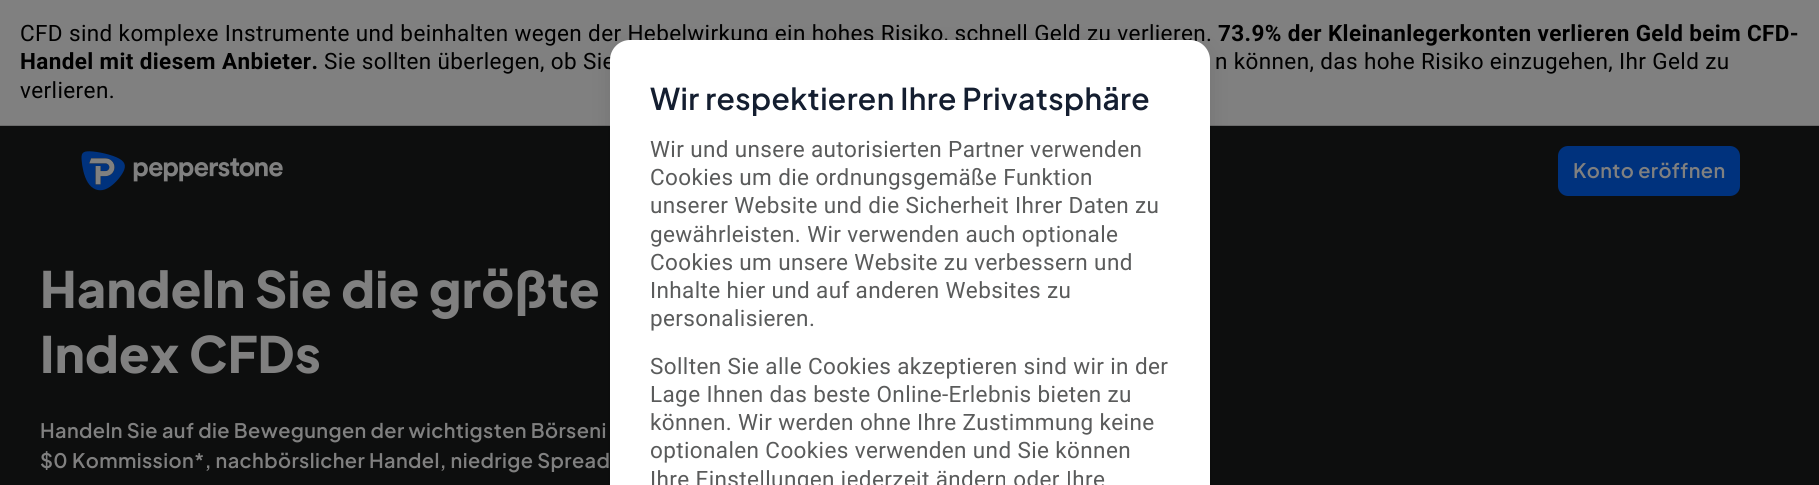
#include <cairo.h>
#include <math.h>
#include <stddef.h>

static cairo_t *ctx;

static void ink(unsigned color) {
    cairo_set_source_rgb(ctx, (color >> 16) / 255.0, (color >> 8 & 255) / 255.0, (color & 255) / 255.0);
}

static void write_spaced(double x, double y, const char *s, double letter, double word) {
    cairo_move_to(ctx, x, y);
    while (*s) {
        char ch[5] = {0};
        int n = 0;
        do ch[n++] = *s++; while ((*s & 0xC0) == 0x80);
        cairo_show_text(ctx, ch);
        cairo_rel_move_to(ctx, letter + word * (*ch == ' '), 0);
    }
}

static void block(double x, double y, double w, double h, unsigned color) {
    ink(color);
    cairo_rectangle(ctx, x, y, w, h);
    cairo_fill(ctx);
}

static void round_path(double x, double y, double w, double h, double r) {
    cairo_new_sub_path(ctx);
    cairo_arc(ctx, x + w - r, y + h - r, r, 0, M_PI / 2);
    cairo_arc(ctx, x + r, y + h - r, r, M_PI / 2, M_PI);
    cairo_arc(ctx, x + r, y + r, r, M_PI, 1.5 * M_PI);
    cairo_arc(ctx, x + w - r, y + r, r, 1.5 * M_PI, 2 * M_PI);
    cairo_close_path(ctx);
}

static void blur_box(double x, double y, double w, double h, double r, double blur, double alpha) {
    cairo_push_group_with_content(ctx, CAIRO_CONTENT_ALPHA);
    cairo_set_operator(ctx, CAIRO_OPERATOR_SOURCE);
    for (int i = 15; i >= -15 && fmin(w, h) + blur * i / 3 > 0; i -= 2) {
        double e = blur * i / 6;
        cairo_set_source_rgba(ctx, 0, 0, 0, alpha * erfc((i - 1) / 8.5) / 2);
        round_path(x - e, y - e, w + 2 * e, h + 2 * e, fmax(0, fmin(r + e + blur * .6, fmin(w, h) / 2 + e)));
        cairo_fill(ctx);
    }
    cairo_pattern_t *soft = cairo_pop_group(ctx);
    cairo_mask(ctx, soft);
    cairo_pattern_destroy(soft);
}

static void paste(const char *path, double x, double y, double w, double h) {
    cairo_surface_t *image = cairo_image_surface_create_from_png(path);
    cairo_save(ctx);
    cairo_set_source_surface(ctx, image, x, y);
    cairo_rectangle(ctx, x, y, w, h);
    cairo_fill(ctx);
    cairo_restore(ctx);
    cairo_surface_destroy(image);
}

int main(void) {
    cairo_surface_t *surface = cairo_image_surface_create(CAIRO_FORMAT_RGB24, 1819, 485);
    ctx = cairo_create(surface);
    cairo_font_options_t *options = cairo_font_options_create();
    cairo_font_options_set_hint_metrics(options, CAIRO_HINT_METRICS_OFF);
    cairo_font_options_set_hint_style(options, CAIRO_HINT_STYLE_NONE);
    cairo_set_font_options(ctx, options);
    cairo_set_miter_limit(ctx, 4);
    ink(0x0d0e0e);
    cairo_paint(ctx);
    block(0, 0, 1819, 125, 0x808080);
    block(0, 125, 1819, 1, 0x6b6b6b);
    cairo_select_font_face(ctx, "Roboto", CAIRO_FONT_SLANT_NORMAL, CAIRO_FONT_WEIGHT_NORMAL);
    cairo_set_font_size(ctx, 22.5);
    ink(0x000000);
    write_spaced(20, 41, "CFD sind komplexe Instrumente und beinhalten wegen der Hebelwirkung ein hohes Risiko, schnell Geld zu verlieren.", 0.38, 0);
    cairo_select_font_face(ctx, "Roboto", CAIRO_FONT_SLANT_NORMAL, CAIRO_FONT_WEIGHT_BOLD);
    write_spaced(1218, 41, "73.9% der Kleinanlegerkonten verlieren Geld beim CFD-", 0.38, 0);
    write_spaced(20, 69, "Handel mit diesem Anbieter.", 0.38, 0);
    cairo_select_font_face(ctx, "Roboto", CAIRO_FONT_SLANT_NORMAL, CAIRO_FONT_WEIGHT_NORMAL);
    write_spaced(324, 69, "Sie sollten überlegen, ob Sie", 0.38, 0);
    write_spaced(1215, 69, "n können, das hohe Risiko einzugehen, Ihr Geld zu", 0.38, 0);
    write_spaced(20, 98, "verlieren.", 0.38, 0);
    paste("pic1.png", 81, 151, 202, 40);
    ink(0x00327d);
    round_path(1558, 146, 182, 50, 10);
    cairo_fill(ctx);
    cairo_select_font_face(ctx, "Plus Jakarta Sans SemiBold", CAIRO_FONT_SLANT_NORMAL, CAIRO_FONT_WEIGHT_NORMAL);
    cairo_set_font_size(ctx, 20);
    ink(0x808080);
    write_spaced(1573, 178, "Konto eröffnen", 0.38, 0);
    cairo_select_font_face(ctx, "Plus Jakarta Sans ExtraBold", CAIRO_FONT_SLANT_NORMAL, CAIRO_FONT_WEIGHT_NORMAL);
    cairo_set_font_size(ctx, 50);
    write_spaced(40, 308, "Handeln Sie die größte", 0.38, 0);
    write_spaced(40, 373, "Index CFDs", 0.38, 0);
    cairo_select_font_face(ctx, "Plus Jakarta Sans SemiBold", CAIRO_FONT_SLANT_NORMAL, CAIRO_FONT_WEIGHT_NORMAL);
    cairo_set_font_size(ctx, 20);
    write_spaced(40, 438, "Handeln Sie auf die Bewegungen der wichtigsten Börseni", 0.38, 0);
    write_spaced(40, 468, "$0 Kommission*, nachbörslicher Handel, niedrige Spread", 0.38, 0);
    ink(0x000000);
    blur_box(610, 45, 600, 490, 20, 10, 0.1);
    ink(0xffffff);
    cairo_new_path(ctx);
    cairo_move_to(ctx, 630, 40);
    cairo_line_to(ctx, 1190, 40);
    cairo_curve_to(ctx, 1201, 40, 1210, 49, 1210, 60);
    cairo_line_to(ctx, 1210, 485);
    cairo_line_to(ctx, 610, 485);
    cairo_line_to(ctx, 610, 60);
    cairo_curve_to(ctx, 610, 49, 619, 40, 630, 40);
    cairo_close_path(ctx);
    cairo_fill(ctx);
    cairo_set_font_size(ctx, 30);
    ink(0x141e30);
    write_spaced(650, 110, "Wir respektieren Ihre Privatsphäre", 0.38, 0);
    cairo_select_font_face(ctx, "Roboto", CAIRO_FONT_SLANT_NORMAL, CAIRO_FONT_WEIGHT_NORMAL);
    cairo_set_font_size(ctx, 22.5);
    ink(0x5a5b5b);
    write_spaced(650, 157, "Wir und unsere autorisierten Partner verwenden", 0.38, 0);
    write_spaced(650, 185, "Cookies um die ordnungsgemäße Funktion", 0.38, 0);
    write_spaced(650, 213, "unserer Website und die Sicherheit Ihrer Daten zu", 0.38, 0);
    write_spaced(650, 242, "gewährleisten. Wir verwenden auch optionale", 0.38, 0);
    write_spaced(650, 270, "Cookies um unsere Website zu verbessern und", 0.38, 0);
    write_spaced(650, 298, "Inhalte hier und auf anderen Websites zu", 0.38, 0);
    write_spaced(650, 326, "personalisieren.", 0.38, 0);
    write_spaced(650, 374, "Sollten Sie alle Cookies akzeptieren sind wir in der", 0.38, 0);
    write_spaced(650, 402, "Lage Ihnen das beste Online-Erlebnis bieten zu", 0.38, 0);
    write_spaced(650, 430, "können. Wir werden ohne Ihre Zustimmung keine", 0.38, 0);
    write_spaced(650, 458, "optionalen Cookies verwenden und Sie können", 0.38, 0);
    write_spaced(650, 487, "Ihre Einstellungen jederzeit ändern oder Ihre", 0.38, 0);
    cairo_surface_write_to_png(surface, "screenshot.png");
    cairo_font_options_destroy(options);
    cairo_destroy(ctx);
    cairo_surface_destroy(surface);
    return 0;
}
